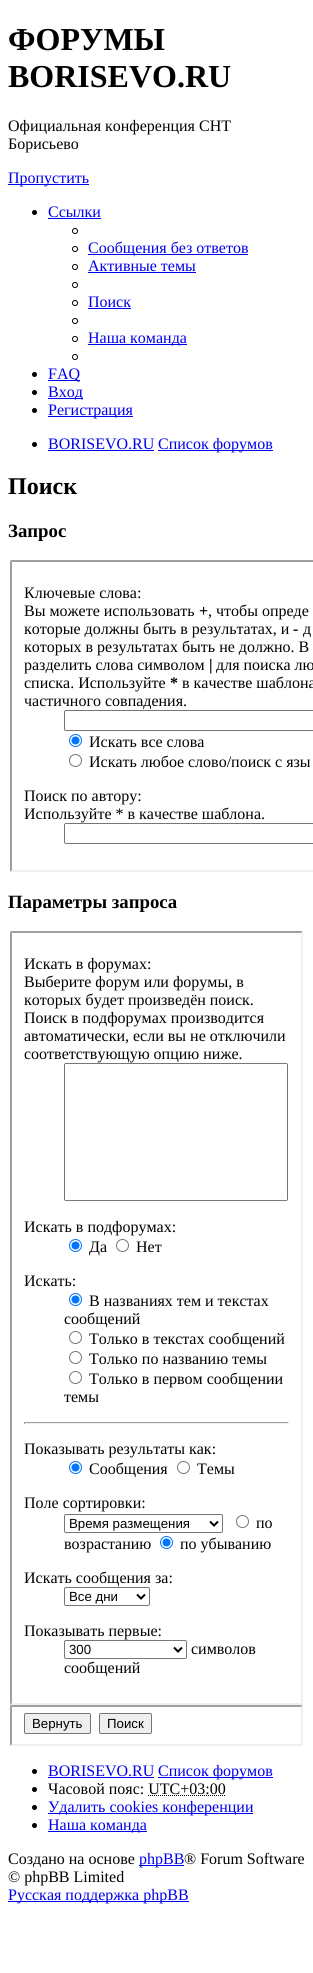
#include <cairo.h>
#include <math.h>
#include <stddef.h>

typedef struct { const char *family; double size; int italic, bold; unsigned color; } style_t;
static cairo_t *ctx;

static void ink(unsigned color) {
    cairo_set_source_rgb(ctx, (color >> 16) / 255.0, (color >> 8 & 255) / 255.0, (color & 255) / 255.0);
}

static void write(double x, double y, const char *s, const style_t *st) {
    cairo_select_font_face(ctx, st->family, st->italic ? CAIRO_FONT_SLANT_ITALIC : CAIRO_FONT_SLANT_NORMAL,
        st->bold ? CAIRO_FONT_WEIGHT_BOLD : CAIRO_FONT_WEIGHT_NORMAL);
    cairo_set_font_size(ctx, st->size);
    ink(st->color);
    cairo_move_to(ctx, x, y);
    cairo_show_text(ctx, s);
}

static void block(double x, double y, double w, double h, unsigned color) {
    ink(color);
    cairo_rectangle(ctx, x, y, w, h);
    cairo_fill(ctx);
}

static void round_path(double x, double y, double w, double h, double r) {
    cairo_new_sub_path(ctx);
    cairo_arc(ctx, x + w - r, y + h - r, r, 0, M_PI / 2);
    cairo_arc(ctx, x + r, y + h - r, r, M_PI / 2, M_PI);
    cairo_arc(ctx, x + r, y + r, r, M_PI, 1.5 * M_PI);
    cairo_arc(ctx, x + w - r, y + r, r, 1.5 * M_PI, 2 * M_PI);
    cairo_close_path(ctx);
}

static const style_t s1 = {"Liberation Serif", 32, 0, 1, 0x000000};
static const style_t s2 = {"Liberation Serif", 16, 0, 0, 0x000000};
static const style_t s3 = {"Liberation Serif", 16, 0, 0, 0x0000ee};
static const style_t s4 = {"Liberation Serif", 24, 0, 1, 0x000000};
static const style_t s5 = {"Liberation Serif", 18.75, 0, 1, 0x000000};
static const style_t s6 = {"Liberation Serif", 16, 0, 1, 0x000000};
static const style_t s7 = {"Liberation Sans", 13.25, 0, 0, 0x000000};

int main(void) {
    cairo_surface_t *surface = cairo_image_surface_create(CAIRO_FORMAT_RGB24, 313, 1973);
    ctx = cairo_create(surface);
    cairo_font_options_t *options = cairo_font_options_create();
    cairo_font_options_set_hint_metrics(options, CAIRO_HINT_METRICS_OFF);
    cairo_font_options_set_hint_style(options, CAIRO_HINT_STYLE_NONE);
    cairo_set_font_options(ctx, options);
    cairo_set_miter_limit(ctx, 4);
    ink(0xffffff);
    cairo_paint(ctx);
    write(8, 50, "ФОРУМЫ", &s1);
    write(8, 87, "BORISEVO.RU", &s1);
    write(8, 131, "Официальная конференция СНТ", &s2);
    write(8, 149, "Борисьево", &s2);
    block(8, 184, 81, 1, 0x0000ee);
    write(8, 183, "Пропустить", &s3);
    ink(0x000000);
    cairo_new_path(ctx);
    cairo_arc(ctx, 34.5, 212.5, 2.5, 0, 2 * M_PI);
    cairo_fill(ctx);
    write(48, 217, "Ссылки", &s3);
    block(48, 218, 53, 1, 0x0000ee);
    cairo_new_path(ctx);
    cairo_arc(ctx, 75, 231, 2.5, 0, 2 * M_PI);
    ink(0x000000);
    cairo_set_line_width(ctx, 1);
    cairo_stroke(ctx);
    cairo_arc(ctx, 75, 249, 2.5, 0, 2 * M_PI);
    cairo_stroke(ctx);
    block(88, 254, 160, 1, 0x0000ee);
    write(88, 253, "Сообщения без ответов", &s3);
    cairo_new_path(ctx);
    cairo_arc(ctx, 75, 267, 2.5, 0, 2 * M_PI);
    ink(0x000000);
    cairo_stroke(ctx);
    write(88, 271, "Активные темы", &s3);
    block(88, 272, 108, 1, 0x0000ee);
    cairo_new_path(ctx);
    cairo_arc(ctx, 75, 285, 2.5, 0, 2 * M_PI);
    ink(0x000000);
    cairo_stroke(ctx);
    cairo_arc(ctx, 75, 303, 2.5, 0, 2 * M_PI);
    cairo_stroke(ctx);
    write(88, 307, "Поиск", &s3);
    block(88, 308, 43, 1, 0x0000ee);
    cairo_new_path(ctx);
    cairo_arc(ctx, 75, 321, 2.5, 0, 2 * M_PI);
    ink(0x000000);
    cairo_stroke(ctx);
    cairo_arc(ctx, 75, 339, 2.5, 0, 2 * M_PI);
    cairo_stroke(ctx);
    block(88, 344, 99, 1, 0x0000ee);
    write(88, 343, "Наша команда", &s3);
    cairo_new_path(ctx);
    cairo_arc(ctx, 75, 357, 2.5, 0, 2 * M_PI);
    ink(0x000000);
    cairo_stroke(ctx);
    cairo_arc(ctx, 34.5, 374.5, 2.5, 0, 2 * M_PI);
    cairo_fill(ctx);
    block(48, 380, 32, 1, 0x0000ee);
    write(48, 379, "FAQ", &s3);
    ink(0x000000);
    cairo_new_path(ctx);
    cairo_arc(ctx, 34.5, 392.5, 2.5, 0, 2 * M_PI);
    cairo_fill(ctx);
    block(48, 398, 35, 1, 0x0000ee);
    write(48, 397, "Вход", &s3);
    ink(0x000000);
    cairo_new_path(ctx);
    cairo_arc(ctx, 34.5, 410.5, 2.5, 0, 2 * M_PI);
    cairo_fill(ctx);
    block(48, 416, 85, 1, 0x0000ee);
    write(48, 415, "Регистрация", &s3);
    ink(0x000000);
    cairo_new_path(ctx);
    cairo_arc(ctx, 34.5, 444.5, 2.5, 0, 2 * M_PI);
    cairo_fill(ctx);
    write(48, 449, "BORISEVO.RU", &s3);
    block(48, 450, 106, 1, 0x0000ee);
    block(158, 450, 115, 1, 0x0000ee);
    write(158, 449, "Список форумов", &s3);
    write(8, 494, "Поиск", &s4);
    write(8, 537, "Запрос", &s5);
    ink(0x9f9f9f);
    cairo_new_path(ctx);
    cairo_move_to(ctx, 10, 560);
    cairo_line_to(ctx, 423, 560);
    cairo_line_to(ctx, 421, 562);
    cairo_line_to(ctx, 12, 562);
    cairo_close_path(ctx);
    cairo_fill(ctx);
    ink(0xefefef);
    cairo_new_path(ctx);
    cairo_move_to(ctx, 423, 872);
    cairo_line_to(ctx, 10, 872);
    cairo_line_to(ctx, 12, 870);
    cairo_line_to(ctx, 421, 870);
    cairo_close_path(ctx);
    cairo_fill(ctx);
    ink(0x9f9f9f);
    cairo_new_path(ctx);
    cairo_move_to(ctx, 10, 872);
    cairo_line_to(ctx, 10, 560);
    cairo_line_to(ctx, 12, 562);
    cairo_line_to(ctx, 12, 870);
    cairo_close_path(ctx);
    cairo_fill(ctx);
    write(24, 598, "Ключевые слова:", &s2);
    write(24, 616, "Вы можете использовать", &s2);
    write(199, 616, "+", &s6);
    write(208, 616, ", чтобы опреде", &s2);
    write(24, 634, "которые должны быть в результатах, и", &s2);
    write(293, 634, "-", &s6);
    write(303, 634, "д", &s2);
    write(24, 652, "которых в результатах быть не должно. В", &s2);
    write(24, 670, "разделить слова символом", &s2);
    write(209, 670, "|", &s6);
    write(216, 670, "для поиска лю", &s2);
    write(24, 688, "списка. Используйте", &s2);
    write(170, 688, "*", &s6);
    write(182, 688, "в качестве шаблона", &s2);
    write(24, 706, "частичного совпадения.", &s2);
    round_path(64.5, 710.5, 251, 20, 1.5);
    ink(0x767676);
    cairo_stroke(ctx);
    cairo_arc(ctx, 75.5, 740.5, 6, 0, 2 * M_PI);
    ink(0x0075ff);
    cairo_stroke(ctx);
    cairo_arc(ctx, 75.5, 740.5, 4, 0, 2 * M_PI);
    cairo_fill(ctx);
    write(89, 747, "Искать все слова", &s2);
    cairo_new_path(ctx);
    cairo_arc(ctx, 75.5, 760.5, 6, 0, 2 * M_PI);
    ink(0x767676);
    cairo_stroke(ctx);
    write(89, 767, "Искать любое слово/поиск с язы", &s2);
    write(24, 801, "Поиск по автору:", &s2);
    write(24, 819, "Используйте * в качестве шаблона.", &s2);
    round_path(64.5, 823.5, 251, 20, 1.5);
    ink(0x767676);
    cairo_stroke(ctx);
    write(8, 908, "Параметры запроса", &s5);
    ink(0x9f9f9f);
    cairo_new_path(ctx);
    cairo_move_to(ctx, 10, 931);
    cairo_line_to(ctx, 303, 931);
    cairo_line_to(ctx, 301, 933);
    cairo_line_to(ctx, 12, 933);
    cairo_close_path(ctx);
    cairo_fill(ctx);
    ink(0xefefef);
    cairo_new_path(ctx);
    cairo_move_to(ctx, 303, 931);
    cairo_line_to(ctx, 303, 1705);
    cairo_line_to(ctx, 301, 1703);
    cairo_line_to(ctx, 301, 933);
    cairo_close_path(ctx);
    cairo_fill(ctx);
    cairo_new_path(ctx);
    cairo_move_to(ctx, 303, 1705);
    cairo_line_to(ctx, 10, 1705);
    cairo_line_to(ctx, 12, 1703);
    cairo_line_to(ctx, 301, 1703);
    cairo_close_path(ctx);
    cairo_fill(ctx);
    ink(0x9f9f9f);
    cairo_new_path(ctx);
    cairo_move_to(ctx, 10, 1705);
    cairo_line_to(ctx, 10, 931);
    cairo_line_to(ctx, 12, 933);
    cairo_line_to(ctx, 12, 1703);
    cairo_close_path(ctx);
    cairo_fill(ctx);
    write(24, 969, "Искать в форумах:", &s2);
    write(24, 987, "Выберите форум или форумы, в", &s2);
    write(24, 1005, "которых будет произведён поиск.", &s2);
    write(24, 1023, "Поиск в подфорумах производится", &s2);
    write(24, 1041, "автоматически, если вы не отключили", &s2);
    write(24, 1059, "соответствующую опцию ниже.", &s2);
    round_path(64.5, 1063.5, 223, 137, 1.5);
    ink(0x767676);
    cairo_stroke(ctx);
    write(24, 1232, "Искать в подфорумах:", &s2);
    cairo_new_path(ctx);
    cairo_arc(ctx, 75.5, 1245.5, 6, 0, 2 * M_PI);
    ink(0x0075ff);
    cairo_stroke(ctx);
    cairo_arc(ctx, 75.5, 1245.5, 4, 0, 2 * M_PI);
    cairo_fill(ctx);
    write(89, 1252, "Да", &s2);
    cairo_new_path(ctx);
    cairo_arc(ctx, 122.5, 1245.5, 6, 0, 2 * M_PI);
    ink(0x767676);
    cairo_stroke(ctx);
    write(136, 1252, "Нет", &s2);
    write(24, 1286, "Искать:", &s2);
    cairo_new_path(ctx);
    cairo_arc(ctx, 75.5, 1299.5, 6, 0, 2 * M_PI);
    ink(0x0075ff);
    cairo_stroke(ctx);
    cairo_arc(ctx, 75.5, 1299.5, 4, 0, 2 * M_PI);
    cairo_fill(ctx);
    write(89, 1306, "В названиях тем и текстах", &s2);
    write(64, 1324, "сообщений", &s2);
    cairo_new_path(ctx);
    cairo_arc(ctx, 75.5, 1337.5, 6, 0, 2 * M_PI);
    ink(0x767676);
    cairo_stroke(ctx);
    write(89, 1344, "Только в текстах сообщений", &s2);
    cairo_new_path(ctx);
    cairo_arc(ctx, 75.5, 1357.5, 6, 0, 2 * M_PI);
    ink(0x767676);
    cairo_stroke(ctx);
    write(89, 1364, "Только по названию темы", &s2);
    cairo_new_path(ctx);
    cairo_arc(ctx, 75.5, 1377.5, 6, 0, 2 * M_PI);
    ink(0x767676);
    cairo_stroke(ctx);
    write(89, 1384, "Только в первом сообщении", &s2);
    write(64, 1402, "темы", &s2);
    block(24, 1422, 265, 1, 0x9f9f9f);
    block(288, 1422, 1, 2, 0xeeeeee);
    block(24, 1423, 265, 1, 0xeeeeee);
    block(24, 1422, 1, 2, 0x9f9f9f);
    write(24, 1454, "Показывать результаты как:", &s2);
    cairo_new_path(ctx);
    cairo_arc(ctx, 75.5, 1467.5, 6, 0, 2 * M_PI);
    ink(0x0075ff);
    cairo_stroke(ctx);
    cairo_arc(ctx, 75.5, 1467.5, 4, 0, 2 * M_PI);
    cairo_fill(ctx);
    write(89, 1474, "Сообщения", &s2);
    cairo_new_path(ctx);
    cairo_arc(ctx, 183.5, 1467.5, 6, 0, 2 * M_PI);
    ink(0x767676);
    cairo_stroke(ctx);
    write(197, 1474, "Темы", &s2);
    write(24, 1508, "Поле сортировки:", &s2);
    round_path(64.5, 1514.5, 158, 18, 1.5);
    ink(0x767676);
    cairo_stroke(ctx);
    cairo_new_path(ctx);
    cairo_move_to(ctx, 210, 1521.5);
    cairo_line_to(ctx, 214, 1525.5);
    cairo_line_to(ctx, 218, 1521.5);
    ink(0x000000);
    cairo_set_line_width(ctx, 2);
    cairo_stroke(ctx);
    write(69, 1528, "Время размещения", &s7);
    cairo_new_path(ctx);
    cairo_arc(ctx, 242.5, 1521.5, 6, 0, 2 * M_PI);
    ink(0x767676);
    cairo_set_line_width(ctx, 1);
    cairo_stroke(ctx);
    write(256, 1528, "по", &s2);
    write(64, 1549, "возрастанию", &s2);
    cairo_new_path(ctx);
    cairo_arc(ctx, 166.5, 1542.5, 6, 0, 2 * M_PI);
    ink(0x0075ff);
    cairo_stroke(ctx);
    cairo_arc(ctx, 166.5, 1542.5, 4, 0, 2 * M_PI);
    cairo_fill(ctx);
    write(180, 1549, "по убыванию", &s2);
    write(24, 1583, "Искать сообщения за:", &s2);
    round_path(64.5, 1587.5, 85, 18, 1.5);
    ink(0x767676);
    cairo_stroke(ctx);
    cairo_new_path(ctx);
    cairo_move_to(ctx, 137, 1594.5);
    cairo_line_to(ctx, 141, 1598.5);
    cairo_line_to(ctx, 145, 1594.5);
    ink(0x000000);
    cairo_set_line_width(ctx, 2);
    cairo_stroke(ctx);
    write(69, 1601, "Все дни", &s7);
    write(24, 1636, "Показывать первые:", &s2);
    round_path(64.5, 1640.5, 122, 18, 1.5);
    ink(0x767676);
    cairo_set_line_width(ctx, 1);
    cairo_stroke(ctx);
    cairo_new_path(ctx);
    cairo_move_to(ctx, 174, 1647.5);
    cairo_line_to(ctx, 178, 1651.5);
    cairo_line_to(ctx, 182, 1647.5);
    ink(0x000000);
    cairo_set_line_width(ctx, 2);
    cairo_stroke(ctx);
    write(69, 1654, "300", &s7);
    write(191, 1654, "символов", &s2);
    write(64, 1673, "сообщений", &s2);
    ink(0x9f9f9f);
    cairo_new_path(ctx);
    cairo_move_to(ctx, 10, 1705);
    cairo_line_to(ctx, 303, 1705);
    cairo_line_to(ctx, 301, 1707);
    cairo_line_to(ctx, 12, 1707);
    cairo_close_path(ctx);
    cairo_fill(ctx);
    ink(0xefefef);
    cairo_new_path(ctx);
    cairo_move_to(ctx, 303, 1705);
    cairo_line_to(ctx, 303, 1746);
    cairo_line_to(ctx, 301, 1744);
    cairo_line_to(ctx, 301, 1707);
    cairo_close_path(ctx);
    cairo_fill(ctx);
    cairo_new_path(ctx);
    cairo_move_to(ctx, 303, 1746);
    cairo_line_to(ctx, 10, 1746);
    cairo_line_to(ctx, 12, 1744);
    cairo_line_to(ctx, 301, 1744);
    cairo_close_path(ctx);
    cairo_fill(ctx);
    ink(0x9f9f9f);
    cairo_new_path(ctx);
    cairo_move_to(ctx, 10, 1746);
    cairo_line_to(ctx, 10, 1705);
    cairo_line_to(ctx, 12, 1707);
    cairo_line_to(ctx, 12, 1744);
    cairo_close_path(ctx);
    cairo_fill(ctx);
    ink(0xefefef);
    round_path(24.5, 1713.5, 66, 20, 1.5);
    cairo_fill_preserve(ctx);
    ink(0x767676);
    cairo_set_line_width(ctx, 1);
    cairo_stroke(ctx);
    write(32, 1728, "Вернуть", &s7);
    ink(0xefefef);
    round_path(99.5, 1713.5, 52, 20, 1.5);
    cairo_fill_preserve(ctx);
    ink(0x767676);
    cairo_stroke(ctx);
    write(107, 1728, "Поиск", &s7);
    cairo_new_path(ctx);
    cairo_arc(ctx, 34.5, 1771.5, 2.5, 0, 2 * M_PI);
    cairo_fill(ctx);
    write(48, 1776, "BORISEVO.RU", &s3);
    block(48, 1777, 106, 1, 0x0000ee);
    block(158, 1777, 115, 1, 0x0000ee);
    write(158, 1776, "Список форумов", &s3);
    ink(0x000000);
    cairo_new_path(ctx);
    cairo_arc(ctx, 34.5, 1789.5, 2.5, 0, 2 * M_PI);
    cairo_fill(ctx);
    write(48, 1794, "Часовой пояс: UTC+03:00", &s2);
    cairo_new_path(ctx);
    cairo_move_to(ctx, 148, 1795.5);
    cairo_line_to(ctx, 225.5, 1795.5);
    cairo_set_dash(ctx, (double[]){1, 1}, 2, 0);
    cairo_stroke(ctx);
    cairo_arc(ctx, 34.5, 1807.5, 2.5, 0, 2 * M_PI);
    cairo_fill(ctx);
    block(48, 1813, 205, 1, 0x0000ee);
    write(48, 1812, "Удалить cookies конференции", &s3);
    ink(0x000000);
    cairo_new_path(ctx);
    cairo_arc(ctx, 34.5, 1825.5, 2.5, 0, 2 * M_PI);
    cairo_fill(ctx);
    block(48, 1831, 99, 1, 0x0000ee);
    write(48, 1830, "Наша команда", &s3);
    write(8, 1864, "Создано на основе", &s2);
    block(139, 1865, 45, 1, 0x0000ee);
    write(139, 1864, "phpBB", &s3);
    write(184, 1864, "® Forum Software", &s2);
    write(8, 1882, "© phpBB Limited", &s2);
    block(8, 1901, 181, 1, 0x0000ee);
    write(8, 1900, "Русская поддержка phpBB", &s3);
    cairo_surface_write_to_png(surface, "screenshot.png");
    cairo_font_options_destroy(options);
    cairo_destroy(ctx);
    cairo_surface_destroy(surface);
    return 0;
}
